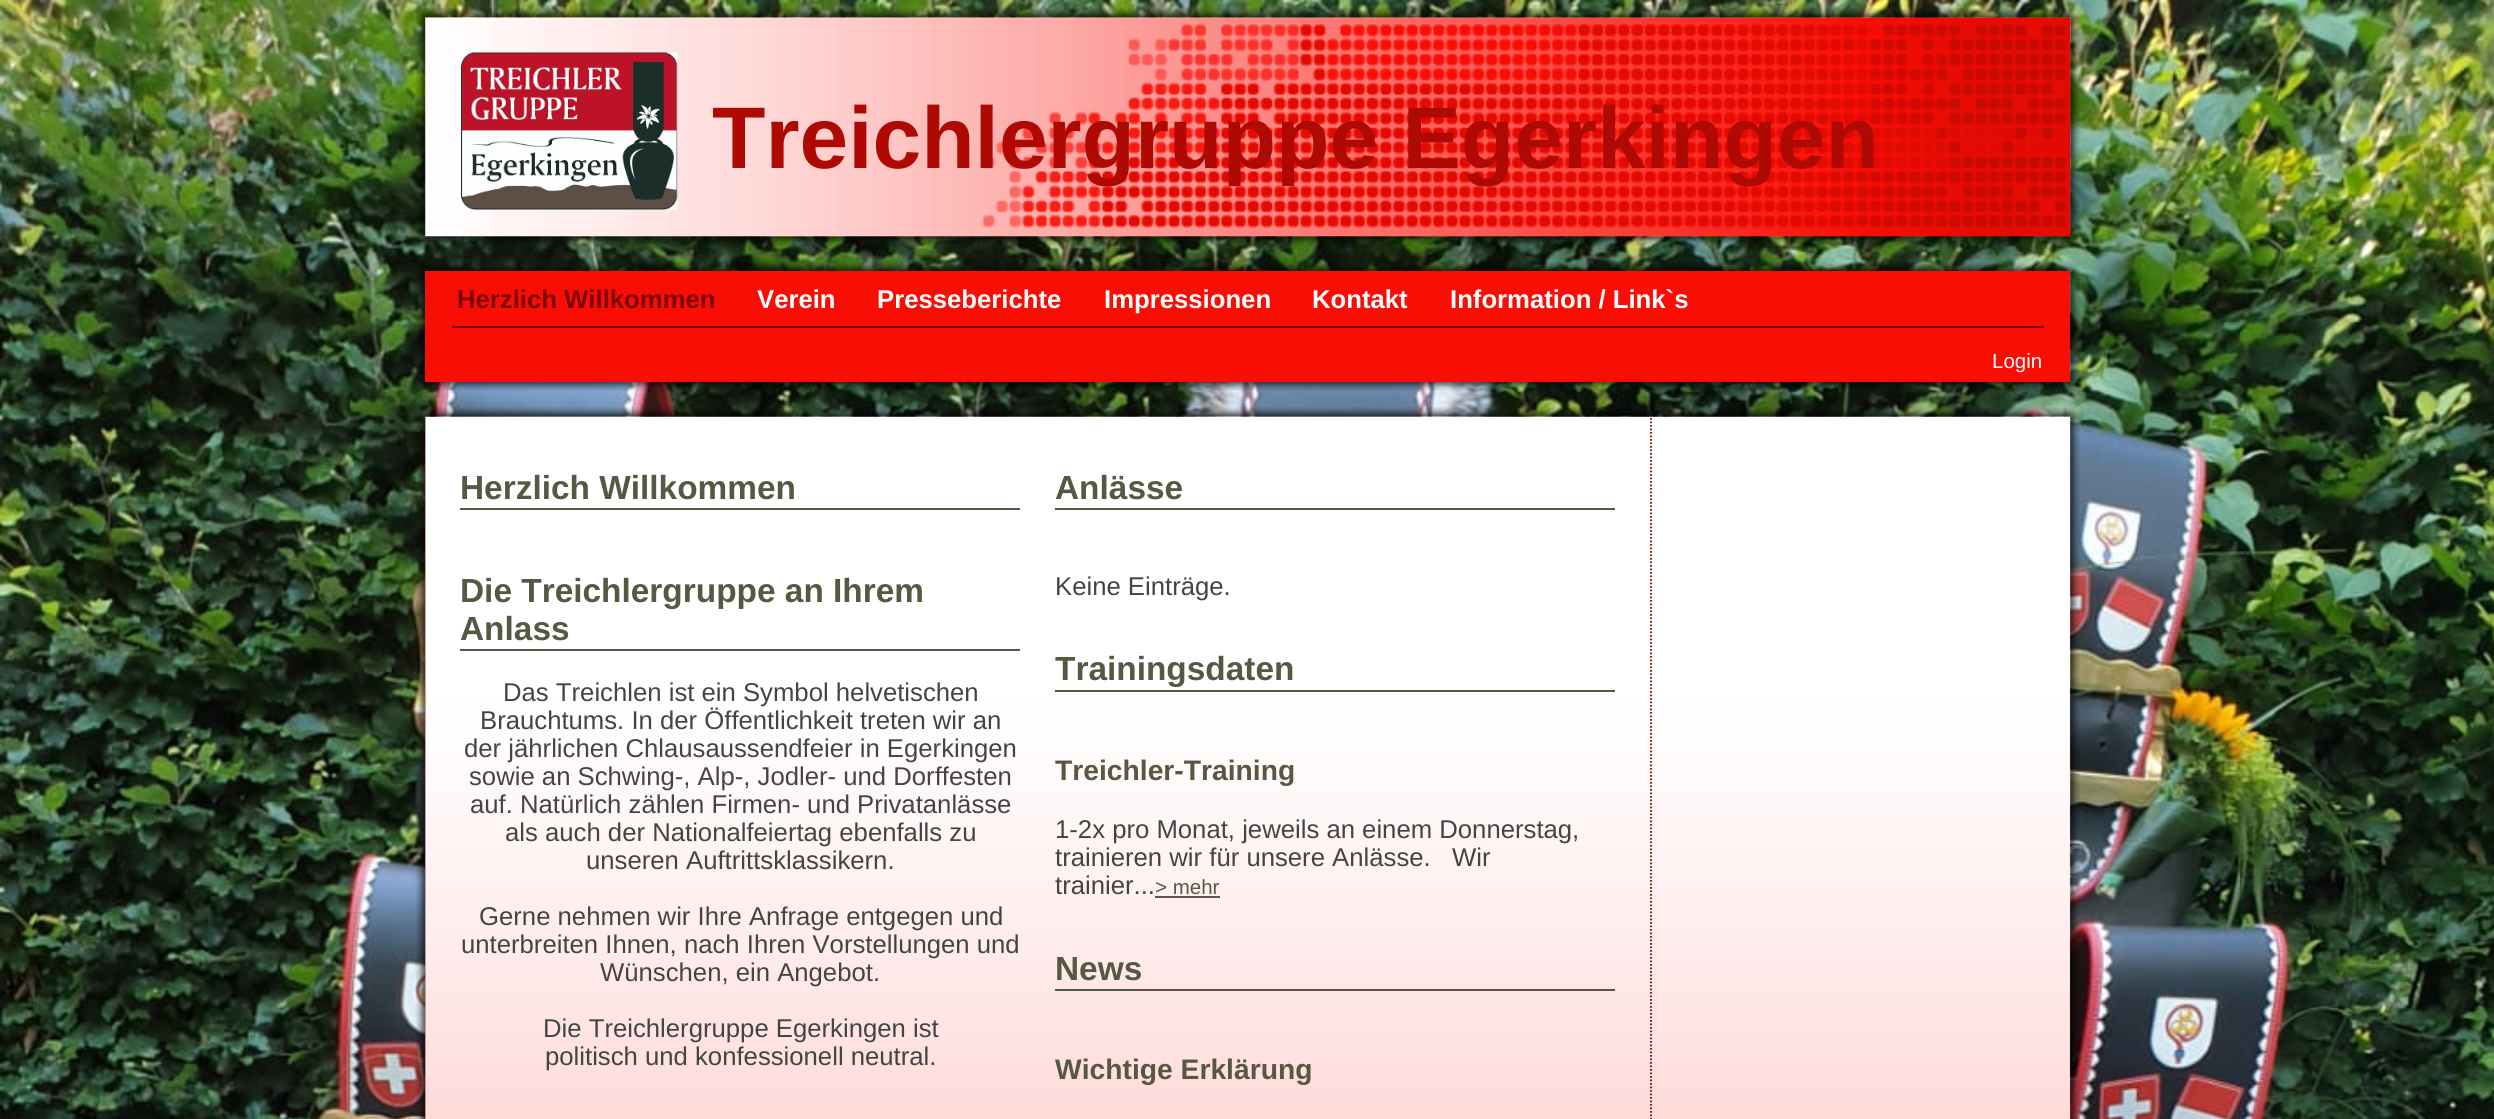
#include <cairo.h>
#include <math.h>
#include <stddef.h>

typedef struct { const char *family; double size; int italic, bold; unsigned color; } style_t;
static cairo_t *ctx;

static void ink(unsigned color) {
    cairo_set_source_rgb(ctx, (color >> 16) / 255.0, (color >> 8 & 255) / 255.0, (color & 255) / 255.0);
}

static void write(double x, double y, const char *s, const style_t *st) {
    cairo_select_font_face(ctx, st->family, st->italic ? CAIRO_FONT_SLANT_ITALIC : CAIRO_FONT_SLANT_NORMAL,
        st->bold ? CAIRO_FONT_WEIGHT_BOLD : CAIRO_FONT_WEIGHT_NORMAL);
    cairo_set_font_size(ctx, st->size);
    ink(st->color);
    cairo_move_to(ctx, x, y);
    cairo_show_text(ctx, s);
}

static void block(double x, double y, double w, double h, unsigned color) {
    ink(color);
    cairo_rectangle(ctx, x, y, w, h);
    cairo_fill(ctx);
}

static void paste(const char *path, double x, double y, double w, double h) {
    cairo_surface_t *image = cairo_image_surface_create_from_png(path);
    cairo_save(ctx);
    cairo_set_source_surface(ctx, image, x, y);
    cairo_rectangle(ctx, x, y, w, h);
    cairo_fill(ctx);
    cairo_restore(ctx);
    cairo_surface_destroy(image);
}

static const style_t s1 = {"Liberation Sans", 87.5, 0, 1, 0xae0902};
static const style_t s2 = {"Liberation Sans", 25.7, 0, 1, 0x7d0601};
static const style_t s3 = {"Liberation Sans", 25.7, 0, 1, 0xffffff};
static const style_t s4 = {"Liberation Sans", 20.5, 0, 0, 0xffffff};
static const style_t s5 = {"Liberation Sans", 33.4, 0, 1, 0x575744};
static const style_t s6 = {"Liberation Sans", 25.7, 0, 0, 0x444444};
static const style_t s7 = {"Liberation Sans", 28.25, 0, 1, 0x575744};
static const style_t s8 = {"Liberation Sans", 20.5, 0, 0, 0x575744};

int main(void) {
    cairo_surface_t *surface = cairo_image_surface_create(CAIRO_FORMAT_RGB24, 2494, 1119);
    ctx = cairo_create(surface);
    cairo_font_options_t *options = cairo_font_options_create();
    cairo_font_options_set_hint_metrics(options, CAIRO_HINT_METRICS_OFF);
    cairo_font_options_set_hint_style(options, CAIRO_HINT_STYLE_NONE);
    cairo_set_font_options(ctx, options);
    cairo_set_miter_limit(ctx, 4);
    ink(0xffffff);
    cairo_paint(ctx);
    paste("pic1.png", 0, 0, 2494, 1119);
    paste("pic2.png", 416, 8, 1664, 10);
    paste("pic3.png", 415, 17, 1665, 220);
    paste("pic6.png", 417, 236, 1662, 10);
    paste("pic4.png", 425, 17, 1646, 220);
    paste("pic5.png", 460, 52, 218, 158);
    write(712, 168, "Treichlergruppe Egerkingen", &s1);
    paste("pic7.png", 419, 261, 1661, 11);
    paste("pic8.png", 416, 271, 1664, 111);
    paste("pic9.png", 419, 381, 1659, 10);
    block(425, 271, 1645, 111, 0xf90d04);
    write(457, 308, "Herzlich Willkommen", &s2);
    write(757, 308, "Verein", &s3);
    write(877, 308, "Presseberichte", &s3);
    write(1104, 308, "Impressionen", &s3);
    write(1312, 308, "Kontakt", &s3);
    write(1450, 308, "Information / Link`s", &s3);
    block(452, 326, 1592, 2, 0x7d0601);
    write(1992, 368, "Login", &s4);
    block(425, 417, 1645, 702, 0xfc8580);
    paste("pic12.png", 425, 416, 1646, 703);
    paste("pic10.png", 418, 407, 1662, 10);
    paste("pic11.png", 415, 416, 1665, 703);
    block(460, 508, 560, 2, 0x575744);
    write(460, 499, "Herzlich Willkommen", &s5);
    block(460, 649, 560, 2, 0x575744);
    write(460, 602, "Die Treichlergruppe an Ihrem", &s5);
    write(460, 640, "Anlass", &s5);
    write(503, 701, "Das Treichlen ist ein Symbol helvetischen", &s6);
    write(480, 729, "Brauchtums. In der Öffentlichkeit treten wir an", &s6);
    write(464, 757, "der jährlichen Chlausaussendfeier in Egerkingen", &s6);
    write(469, 785, "sowie an Schwing-, Alp-, Jodler- und Dorffesten", &s6);
    write(470, 813, "auf. Natürlich zählen Firmen- und Privatanlässe", &s6);
    write(505, 841, "als auch der Nationalfeiertag ebenfalls zu", &s6);
    write(586, 869, "unseren Auftrittsklassikern.", &s6);
    write(479, 925, "Gerne nehmen wir Ihre Anfrage entgegen und", &s6);
    write(461, 953, "unterbreiten Ihnen, nach Ihren Vorstellungen und", &s6);
    write(600, 981, "Wünschen, ein Angebot.", &s6);
    write(543, 1037, "Die Treichlergruppe Egerkingen ist", &s6);
    write(545, 1065, "politisch und konfessionell neutral.", &s6);
    block(1055, 508, 560, 2, 0x575744);
    write(1055, 499, "Anlässe", &s5);
    write(1055, 595, "Keine Einträge.", &s6);
    block(1055, 690, 560, 2, 0x575744);
    write(1055, 680, "Trainingsdaten", &s5);
    write(1055, 780, "Treichler-Training", &s7);
    write(1055, 838, "1-2x pro Monat, jeweils an einem Donnerstag,", &s6);
    write(1055, 866, "trainieren wir für unsere Anlässe.", &s6);
    write(1452, 866, "Wir", &s6);
    write(1055, 894, "trainier...", &s6);
    write(1155, 894, "> mehr", &s8);
    block(1155, 896, 65, 2, 0x575744);
    block(1055, 989, 560, 2, 0x575744);
    write(1055, 980, "News", &s5);
    write(1055, 1079, "Wichtige Erklärung", &s7);
    cairo_new_path(ctx);
    cairo_move_to(ctx, 1651, 418);
    cairo_line_to(ctx, 1651, 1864);
    ink(0x7d0601);
    cairo_set_line_width(ctx, 1.8);
    cairo_set_dash(ctx, (double[]){1.75, 1.75}, 2, 0);
    cairo_stroke(ctx);
    cairo_surface_write_to_png(surface, "screenshot.png");
    cairo_font_options_destroy(options);
    cairo_destroy(ctx);
    cairo_surface_destroy(surface);
    return 0;
}
